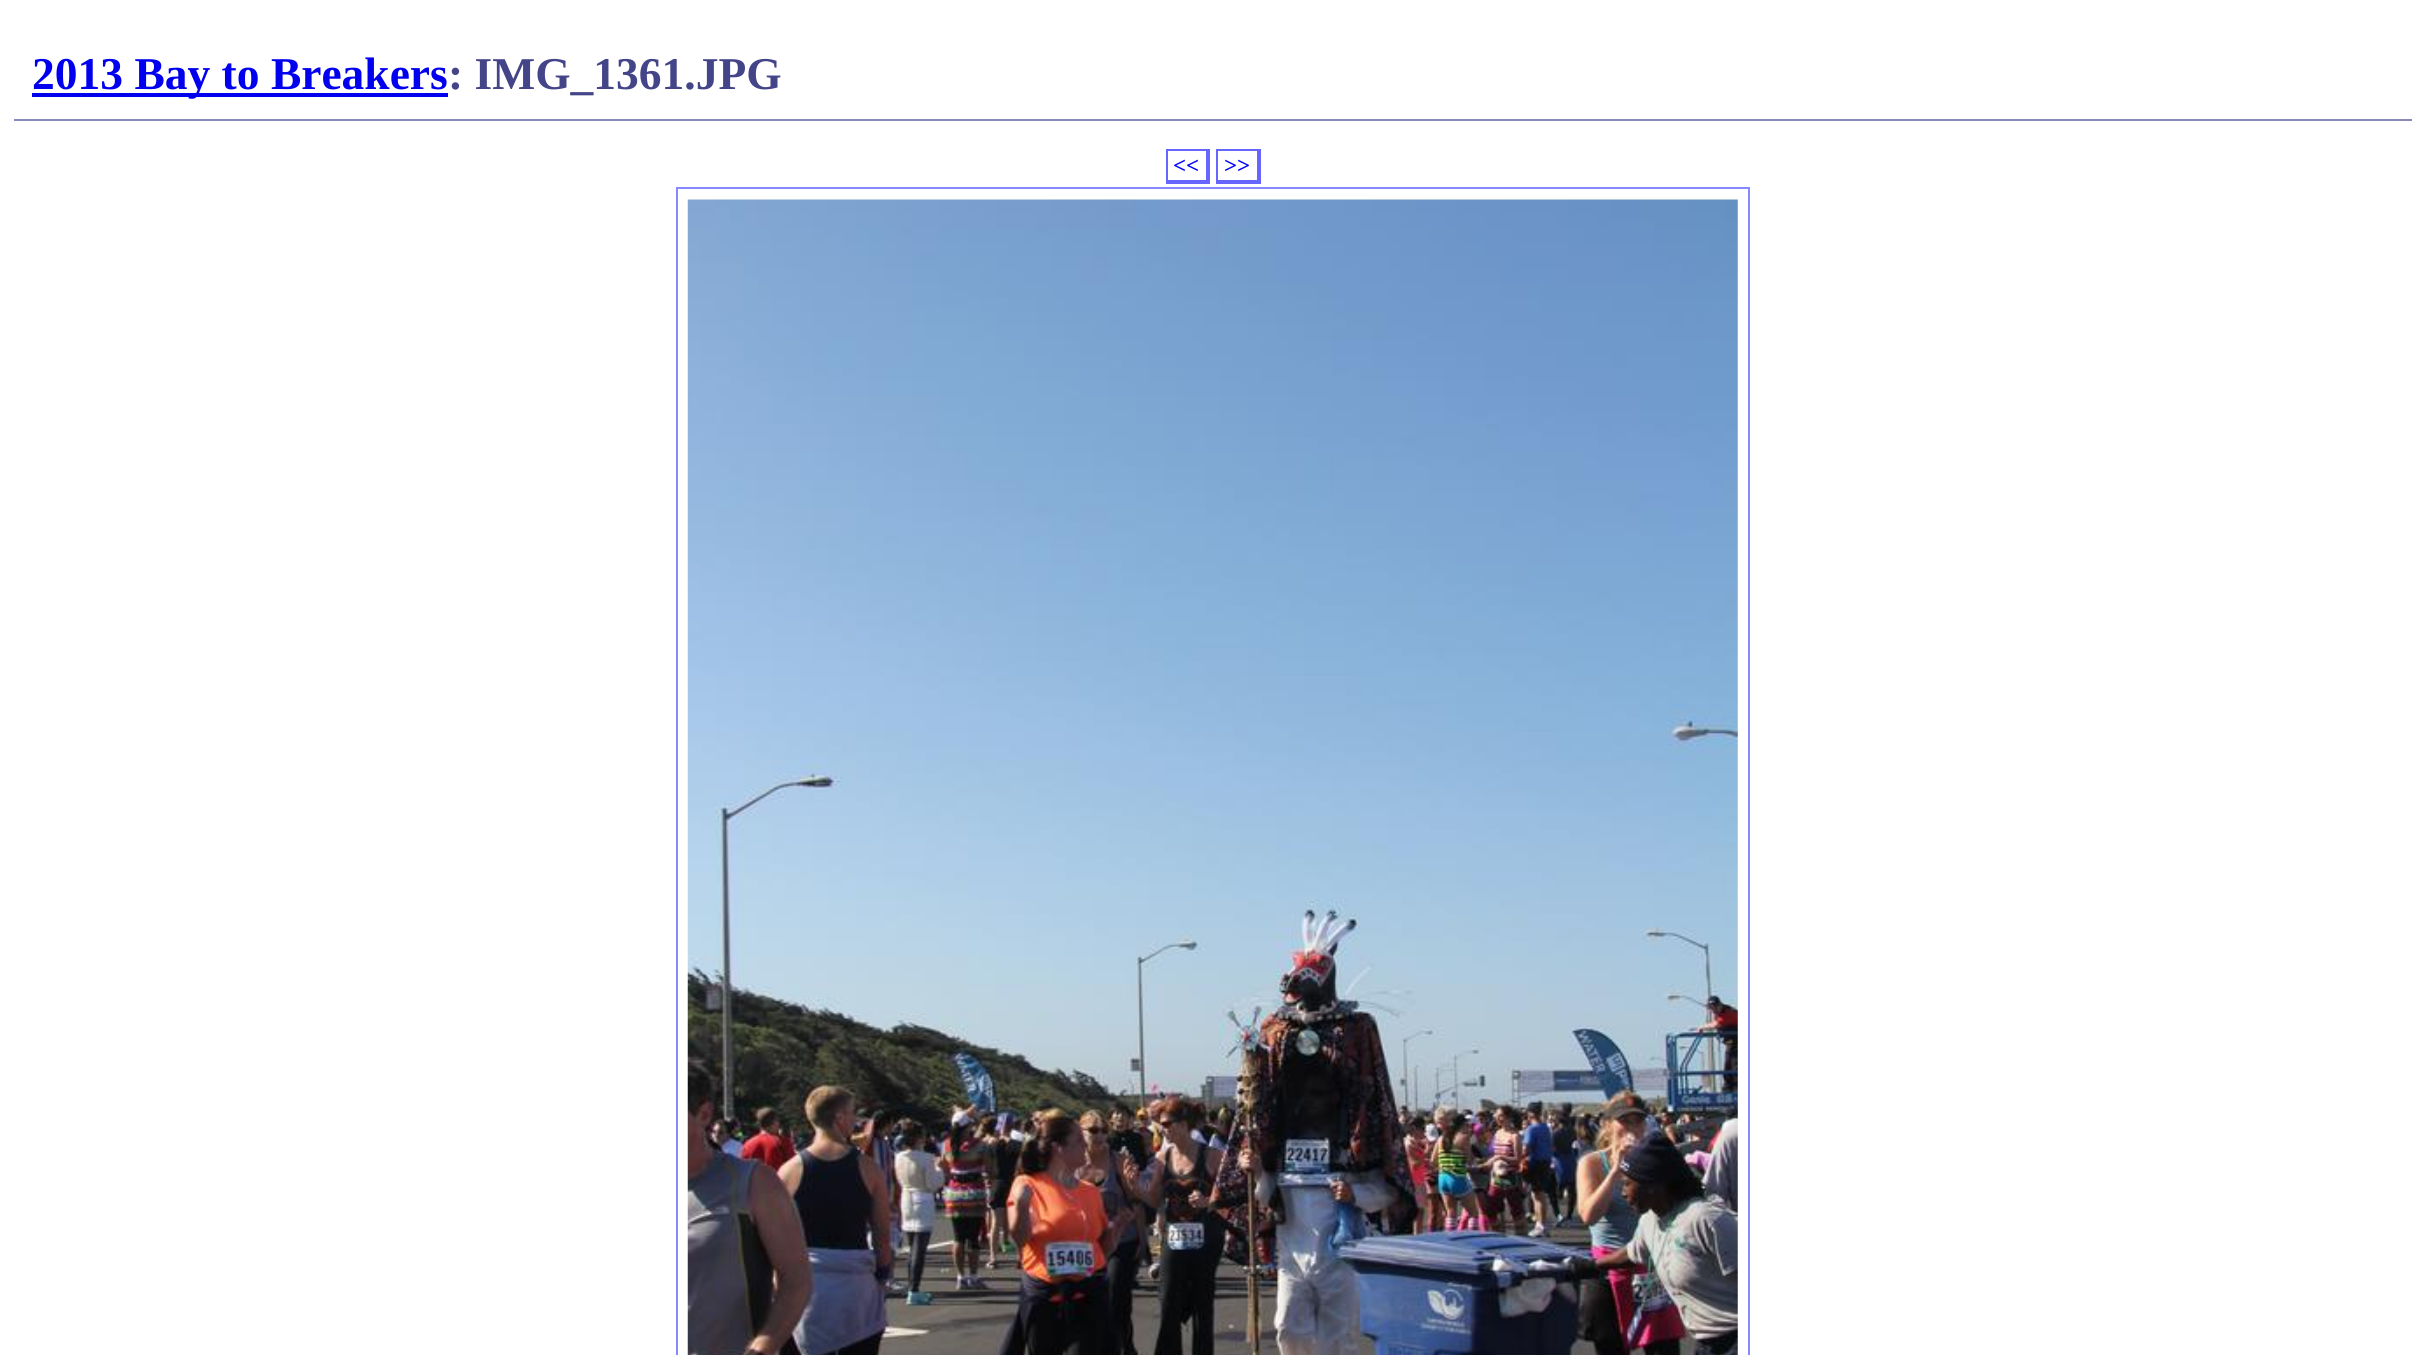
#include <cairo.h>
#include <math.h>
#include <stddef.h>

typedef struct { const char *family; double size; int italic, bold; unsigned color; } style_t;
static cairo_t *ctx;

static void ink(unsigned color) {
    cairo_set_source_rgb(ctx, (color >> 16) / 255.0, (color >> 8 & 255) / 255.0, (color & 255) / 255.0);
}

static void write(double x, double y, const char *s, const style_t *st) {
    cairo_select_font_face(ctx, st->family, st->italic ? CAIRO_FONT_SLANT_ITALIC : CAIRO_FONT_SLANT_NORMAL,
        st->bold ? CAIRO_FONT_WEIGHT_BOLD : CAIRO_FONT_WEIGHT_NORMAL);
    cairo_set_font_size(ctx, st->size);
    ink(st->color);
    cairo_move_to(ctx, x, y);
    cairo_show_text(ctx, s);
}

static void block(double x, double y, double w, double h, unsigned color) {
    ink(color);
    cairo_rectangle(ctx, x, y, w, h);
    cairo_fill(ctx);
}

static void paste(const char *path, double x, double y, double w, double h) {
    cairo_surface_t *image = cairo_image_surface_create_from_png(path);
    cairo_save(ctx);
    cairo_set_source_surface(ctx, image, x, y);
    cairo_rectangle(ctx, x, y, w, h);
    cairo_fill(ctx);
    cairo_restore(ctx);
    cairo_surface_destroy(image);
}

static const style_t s1 = {"Liberation Serif", 45.5, 0, 1, 0x0000ee};
static const style_t s2 = {"Liberation Serif", 45.5, 0, 1, 0x444488};
static const style_t s3 = {"Liberation Serif", 23, 0, 1, 0x0000ff};

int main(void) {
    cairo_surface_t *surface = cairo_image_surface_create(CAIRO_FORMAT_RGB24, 2425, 1355);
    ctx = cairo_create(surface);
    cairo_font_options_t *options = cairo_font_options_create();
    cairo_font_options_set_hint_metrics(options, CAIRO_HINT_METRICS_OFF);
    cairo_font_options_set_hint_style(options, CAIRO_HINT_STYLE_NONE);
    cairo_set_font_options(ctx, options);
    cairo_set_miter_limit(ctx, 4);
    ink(0xffffff);
    cairo_paint(ctx);
    block(14, 119, 2398, 2, 0x8888bb);
    block(32, 93, 416, 4, 0x0000ee);
    write(32, 89, "2013 Bay to Breakers", &s1);
    write(448, 89, ": IMG_1361.JPG", &s2);
    write(1173, 173, "<<", &s3);
    block(1166, 149, 43, 2, 0x6666ff);
    block(1206, 149, 4, 35, 0x6666ff);
    block(1166, 180, 43, 4, 0x6666ff);
    block(1166, 149, 2, 35, 0x6666ff);
    write(1224, 173, ">>", &s3);
    block(1216, 149, 44, 2, 0x6666ff);
    block(1257, 149, 4, 35, 0x6666ff);
    block(1216, 180, 44, 4, 0x6666ff);
    block(1216, 149, 2, 35, 0x6666ff);
    cairo_rectangle(ctx, 677, 188, 1072, 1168);
    ink(0x8888ff);
    cairo_stroke(ctx);
    paste("pic1.png", 687, 199, 1051, 1156);
    cairo_surface_write_to_png(surface, "screenshot.png");
    cairo_font_options_destroy(options);
    cairo_destroy(ctx);
    cairo_surface_destroy(surface);
    return 0;
}
